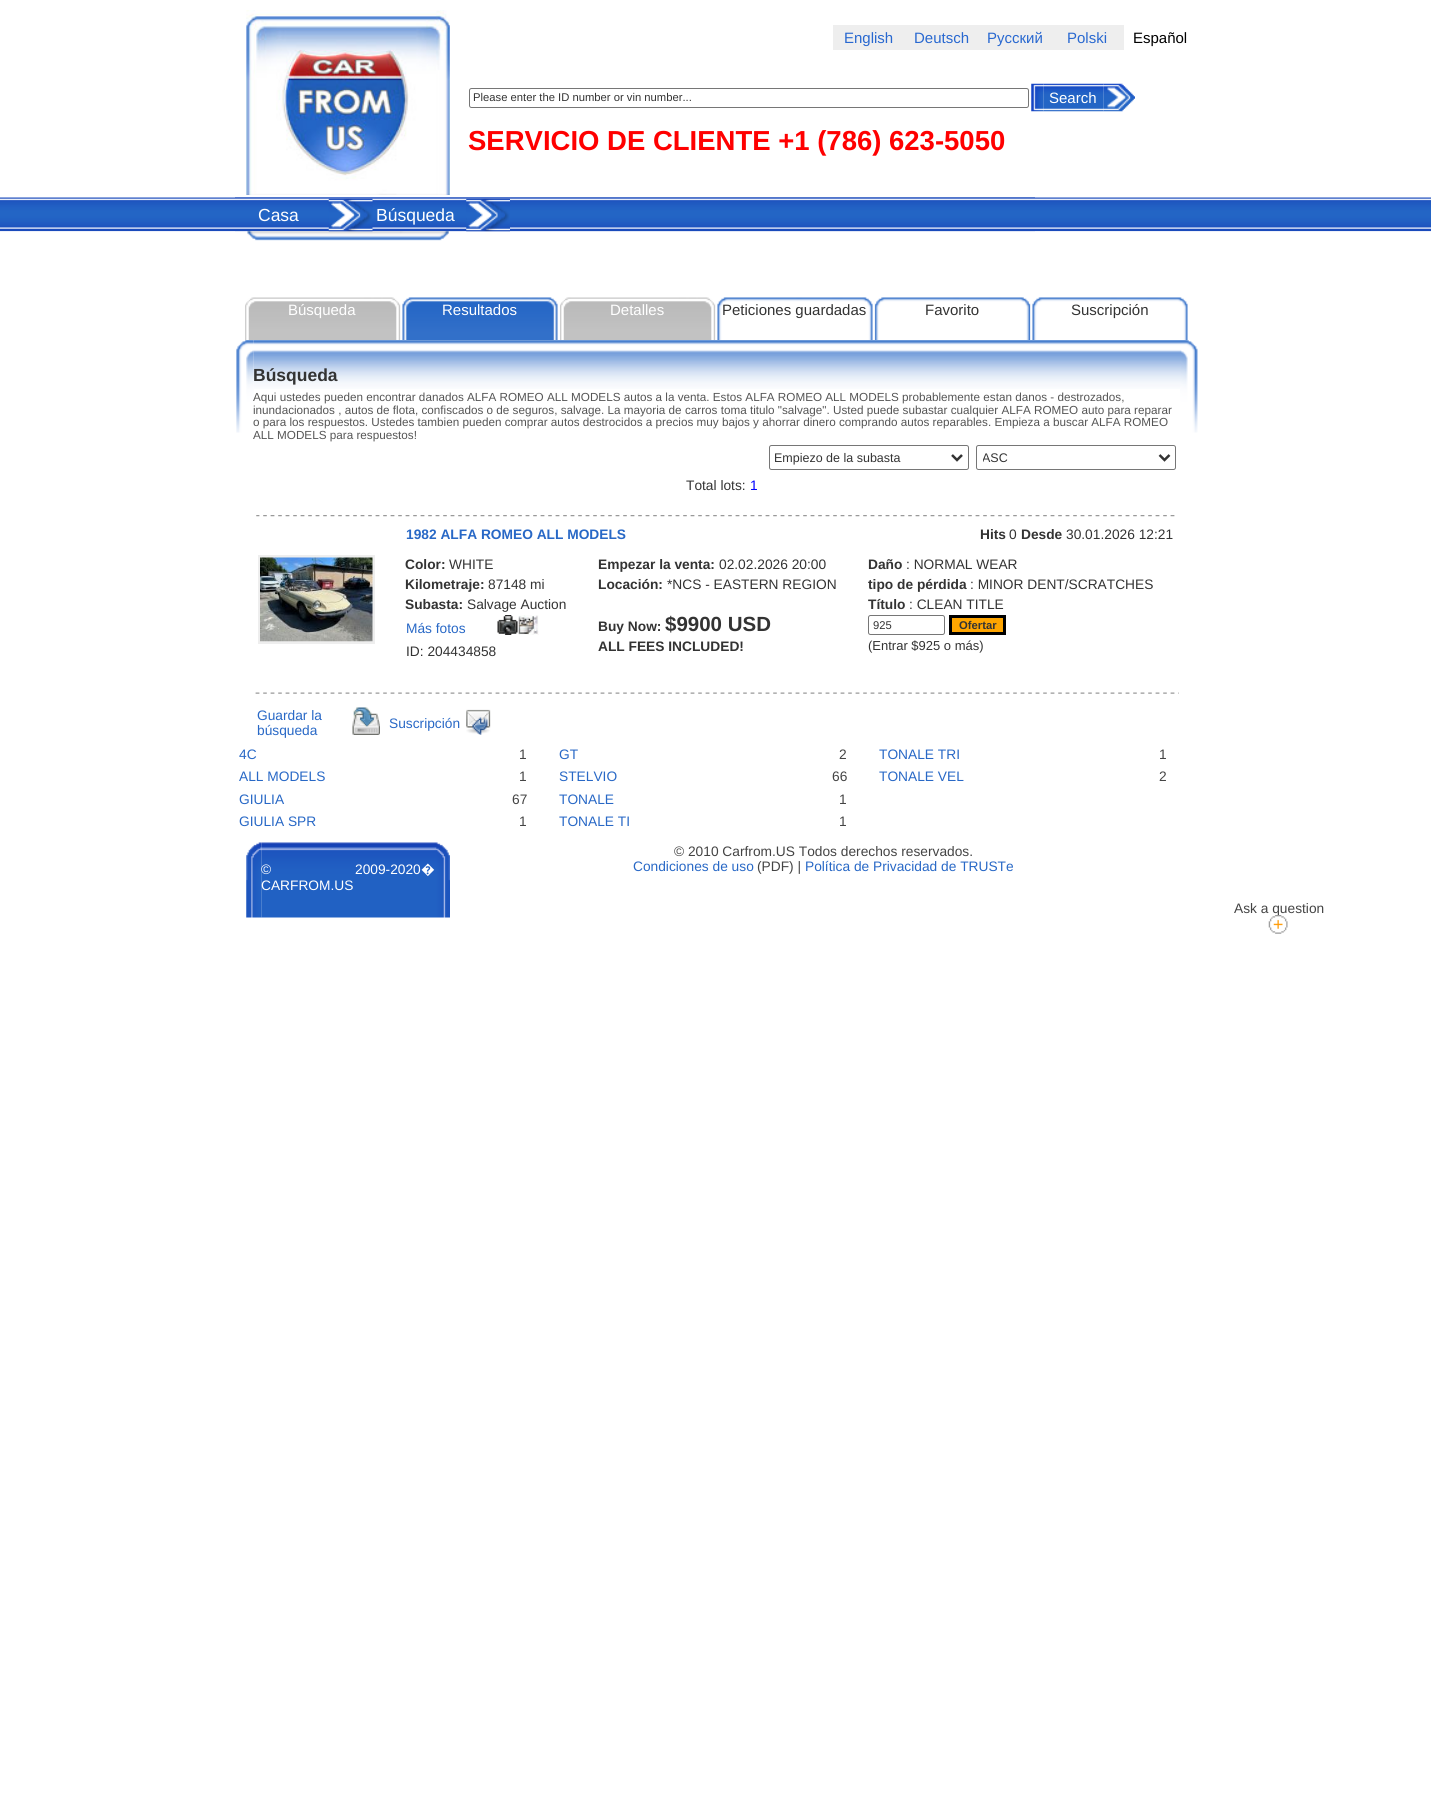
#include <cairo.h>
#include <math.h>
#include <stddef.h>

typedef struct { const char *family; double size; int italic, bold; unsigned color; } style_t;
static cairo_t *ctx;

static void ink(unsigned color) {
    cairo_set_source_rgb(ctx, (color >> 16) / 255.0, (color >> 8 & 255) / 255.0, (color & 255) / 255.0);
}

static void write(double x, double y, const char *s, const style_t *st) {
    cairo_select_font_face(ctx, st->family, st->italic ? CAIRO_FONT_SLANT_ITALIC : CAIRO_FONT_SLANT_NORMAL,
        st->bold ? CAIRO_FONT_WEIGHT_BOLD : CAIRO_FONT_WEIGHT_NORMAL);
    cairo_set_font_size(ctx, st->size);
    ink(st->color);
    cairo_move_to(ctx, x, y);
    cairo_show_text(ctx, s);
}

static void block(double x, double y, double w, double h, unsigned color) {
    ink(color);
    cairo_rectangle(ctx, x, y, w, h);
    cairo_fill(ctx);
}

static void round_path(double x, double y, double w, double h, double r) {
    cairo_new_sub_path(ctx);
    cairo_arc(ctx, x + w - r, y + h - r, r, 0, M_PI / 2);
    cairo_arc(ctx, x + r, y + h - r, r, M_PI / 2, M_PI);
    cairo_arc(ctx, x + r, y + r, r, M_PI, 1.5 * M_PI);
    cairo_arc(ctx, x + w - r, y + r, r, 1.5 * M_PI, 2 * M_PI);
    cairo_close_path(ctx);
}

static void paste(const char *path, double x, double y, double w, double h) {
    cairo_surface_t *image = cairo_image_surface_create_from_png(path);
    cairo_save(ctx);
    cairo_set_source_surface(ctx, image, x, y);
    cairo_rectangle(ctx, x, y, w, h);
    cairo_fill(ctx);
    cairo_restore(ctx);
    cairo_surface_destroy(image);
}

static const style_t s1 = {"Liberation Sans", 15, 0, 0, 0x2868d0};
static const style_t s2 = {"Liberation Sans", 15, 0, 0, 0x000000};
static const style_t s3 = {"Liberation Sans", 11.25, 0, 0, 0x333333};
static const style_t s4 = {"Liberation Sans", 15, 0, 0, 0xffffff};
static const style_t s5 = {"Liberation Sans", 27.5, 0, 1, 0xff0000};
static const style_t s6 = {"Liberation Sans", 17.5, 0, 0, 0xffffff};
static const style_t s7 = {"Liberation Sans", 15, 0, 0, 0x333333};
static const style_t s8 = {"Liberation Sans", 17.5, 0, 1, 0x333333};
static const style_t s9 = {"Liberation Sans", 11.7, 0, 0, 0x555555};
static const style_t s10 = {"Liberation Sans", 12.5, 0, 0, 0x333333};
static const style_t s11 = {"Liberation Sans", 13.75, 0, 0, 0x333333};
static const style_t s12 = {"Liberation Sans", 13.75, 0, 0, 0x0000ff};
static const style_t s13 = {"Liberation Sans", 13.75, 0, 1, 0x2868c6};
static const style_t s14 = {"Liberation Sans", 13.75, 0, 1, 0x333333};
static const style_t s15 = {"Liberation Sans", 13.75, 0, 0, 0x2868c6};
static const style_t s16 = {"Liberation Sans", 20.5, 0, 1, 0x333333};
static const style_t s17 = {"Liberation Sans", 11.25, 0, 1, 0x333333};
static const style_t s18 = {"Liberation Sans", 13, 0, 0, 0x333333};
static const style_t s19 = {"Liberation Sans", 13.75, 0, 0, 0x444444};
static const style_t s20 = {"Liberation Sans", 13.75, 0, 0, 0xffffff};
static const style_t s21 = {"Noto Sans", 13.75, 0, 0, 0xffffff};

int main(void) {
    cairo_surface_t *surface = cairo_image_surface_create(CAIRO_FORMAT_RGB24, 1431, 1800);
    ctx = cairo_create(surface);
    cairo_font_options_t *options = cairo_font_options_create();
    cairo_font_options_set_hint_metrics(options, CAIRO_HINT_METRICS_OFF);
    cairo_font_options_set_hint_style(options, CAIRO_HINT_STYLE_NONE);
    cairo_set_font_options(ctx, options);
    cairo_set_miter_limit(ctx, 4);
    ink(0xffffff);
    cairo_paint(ctx);
    paste("pic1.png", 246, 10, 204, 185);
    block(833, 25, 291, 25, 0xeeeeee);
    write(844, 43, "English", &s1);
    write(914, 43, "Deutsch", &s1);
    write(987, 43, "Русский", &s1);
    write(1067, 43, "Polski", &s1);
    write(1133, 43, "Español", &s2);
    round_path(469.5, 88.5, 559, 19, 2);
    ink(0x767676);
    cairo_set_line_width(ctx, 1);
    cairo_stroke(ctx);
    write(473, 101, "Please enter the ID number or vin number...", &s3);
    paste("pic2.png", 1031, 83, 13, 29);
    paste("pic3.png", 1043, 83, 61, 29);
    write(1049, 103, "Search", &s4);
    paste("pic4.png", 1103, 83, 32, 29);
    write(468, 150, "SERVICIO DE CLIENTE +1 (786) 623-5050", &s5);
    paste("pic5.png", 0, 197, 1431, 35);
    paste("pic6.png", 235, 197, 800, 35);
    paste("pic9.png", 247, 231, 202, 10);
    paste("pic7.png", 328, 198, 45, 34);
    write(258, 221, "Casa", &s6);
    paste("pic8.png", 466, 198, 44, 34);
    write(376, 221, "Búsqueda", &s6);
    paste("pic10.png", 245, 297, 156, 43);
    write(288, 315, "Búsqueda", &s4);
    paste("pic11.png", 402, 297, 156, 43);
    write(442, 315, "Resultados", &s4);
    paste("pic12.png", 560, 297, 156, 43);
    write(610, 315, "Detalles", &s4);
    paste("pic13.png", 717, 297, 156, 43);
    write(722, 315, "Peticiones guardadas", &s7);
    paste("pic14.png", 874, 297, 157, 43);
    write(925, 315, "Favorito", &s7);
    paste("pic13.png", 1032, 297, 156, 43);
    write(1071, 315, "Suscripción", &s7);
    paste("pic15.png", 236, 340, 18, 93);
    paste("pic16.png", 253, 340, 927, 49);
    write(253, 381, "Búsqueda", &s8);
    write(253, 401, "Aqui ustedes pueden encontrar danados ALFA ROMEO ALL MODELS autos a la venta. Estos ALFA ROMEO ALL MODELS probablemente estan danos - destrozados,", &s9);
    write(253, 414, "inundacionados , autos de flota, confiscados o de seguros, salvage. La mayoria de carros toma titulo \"salvage\". Usted puede subastar cualquier ALFA ROMEO auto para reparar", &s9);
    write(253, 426, "o para los respuestos. Ustedes tambien pueden comprar autos destrocidos a precios muy bajos y ahorrar dinero comprando autos reparables. Empieza a buscar ALFA ROMEO", &s9);
    write(253, 439, "ALL MODELS para respuestos!", &s9);
    paste("pic17.png", 1180, 340, 18, 93);
    round_path(769.5, 445.5, 199, 24, 2);
    ink(0x767676);
    cairo_stroke(ctx);
    cairo_new_path(ctx);
    cairo_move_to(ctx, 952, 455);
    cairo_line_to(ctx, 957, 460);
    cairo_line_to(ctx, 962, 455);
    ink(0x333333);
    cairo_set_line_width(ctx, 2.5);
    cairo_stroke(ctx);
    write(774, 462, "Empiezo de la subasta", &s10);
    round_path(976.5, 445.5, 199, 24, 2);
    ink(0x767676);
    cairo_set_line_width(ctx, 1);
    cairo_stroke(ctx);
    cairo_new_path(ctx);
    cairo_move_to(ctx, 1159.5, 455);
    cairo_line_to(ctx, 1164.5, 460);
    cairo_line_to(ctx, 1169.5, 455);
    ink(0x333333);
    cairo_set_line_width(ctx, 2.5);
    cairo_stroke(ctx);
    cairo_save(ctx);
    cairo_rectangle(ctx, 983, 450, 172, 16);
    cairo_clip(ctx);
    write(982, 462, "ASC", &s10);
    cairo_restore(ctx);
    write(686, 490, "Total lots:", &s11);
    write(750, 490, "1", &s12);
    paste("pic18.png", 256, 515, 919, 2);
    write(406, 539, "1982 ALFA ROMEO ALL MODELS", &s13);
    write(980, 539, "Hits", &s14);
    write(1009, 539, "0", &s11);
    write(1021, 539, "Desde", &s14);
    write(1066, 539, "30.01.2026 12:21", &s11);
    cairo_rectangle(ctx, 259.5, 556.5, 114, 86);
    ink(0xeeeeee);
    cairo_set_line_width(ctx, 3);
    cairo_stroke(ctx);
    paste("pic19.png", 260, 557, 113, 85);
    write(405, 569, "Color:", &s14);
    write(449, 569, "WHITE", &s11);
    write(405, 589, "Kilometraje:", &s14);
    write(488, 589, "87148 mi", &s11);
    write(405, 609, "Subasta:", &s14);
    write(467, 609, "Salvage Auction", &s11);
    write(406, 633, "Más fotos", &s15);
    paste("pic20.png", 497, 615, 21, 20);
    paste("pic21.png", 518, 615, 21, 20);
    write(406, 656, "ID: 204434858", &s11);
    write(598, 569, "Empezar la venta:", &s14);
    write(719, 569, "02.02.2026 20:00", &s11);
    write(598, 589, "Locación:", &s14);
    write(667, 589, "*NCS - EASTERN REGION", &s11);
    write(598, 631, "Buy Now:", &s14);
    write(665, 631, "$9900 USD", &s16);
    write(598, 651, "ALL FEES INCLUDED!", &s14);
    write(868, 569, "Daño", &s14);
    write(906, 569, ": NORMAL WEAR", &s11);
    write(868, 589, "tipo de pérdida", &s14);
    write(970, 589, ": MINOR DENT/SCRATCHES", &s11);
    write(868, 609, "Título", &s14);
    write(909, 609, ": CLEAN TITLE", &s11);
    round_path(868.5, 615.5, 76, 19, 2);
    ink(0x767676);
    cairo_set_line_width(ctx, 1);
    cairo_stroke(ctx);
    write(873, 629, "925", &s3);
    ink(0xffa500);
    cairo_rectangle(ctx, 950.5, 616.5, 54, 17);
    cairo_fill_preserve(ctx);
    ink(0x000000);
    cairo_set_line_width(ctx, 3);
    cairo_stroke(ctx);
    write(959, 629, "Ofertar", &s17);
    write(868, 650, "(Entrar $925 o más)", &s18);
    paste("pic22.png", 255, 692, 924, 2);
    write(257, 720, "Guardar la", &s15);
    write(257, 735, "búsqueda", &s15);
    paste("pic23.png", 352, 707, 28, 28);
    write(389, 728, "Suscripción", &s15);
    paste("pic24.png", 466, 709, 25, 26);
    write(239, 759, "4C", &s15);
    write(519, 759, "1", &s19);
    write(559, 759, "GT", &s15);
    write(839, 759, "2", &s19);
    write(879, 759, "TONALE TRI", &s15);
    write(1159, 759, "1", &s19);
    write(239, 781, "ALL MODELS", &s15);
    write(519, 781, "1", &s19);
    write(559, 781, "STELVIO", &s15);
    write(832, 781, "66", &s19);
    write(879, 781, "TONALE VEL", &s15);
    write(1159, 781, "2", &s19);
    write(239, 804, "GIULIA", &s15);
    write(512, 804, "67", &s19);
    write(559, 804, "TONALE", &s15);
    write(839, 804, "1", &s19);
    write(239, 826, "GIULIA SPR", &s15);
    write(519, 826, "1", &s19);
    write(559, 826, "TONALE TI", &s15);
    write(839, 826, "1", &s19);
    paste("pic25.png", 246, 842, 16, 76);
    paste("pic26.png", 435, 842, 15, 76);
    write(674, 856, "© 2010 Carfrom.US Todos derechos reservados.", &s19);
    write(633, 871, "Condiciones de uso", &s15);
    write(757, 871, "(PDF) |", &s19);
    write(805, 871, "Política de Privacidad de TRUSTe", &s15);
    paste("pic27.png", 261, 842, 174, 76);
    write(261, 874, "©", &s20);
    write(355, 874, "2009-2020", &s20);
    write(421, 874, "�", &s21);
    write(261, 890, "CARFROM.US", &s20);
    write(1234, 913, "Ask a question", &s19);
    paste("pic28.png", 1268, 915, 20, 19);
    cairo_surface_write_to_png(surface, "screenshot.png");
    cairo_font_options_destroy(options);
    cairo_destroy(ctx);
    cairo_surface_destroy(surface);
    return 0;
}
